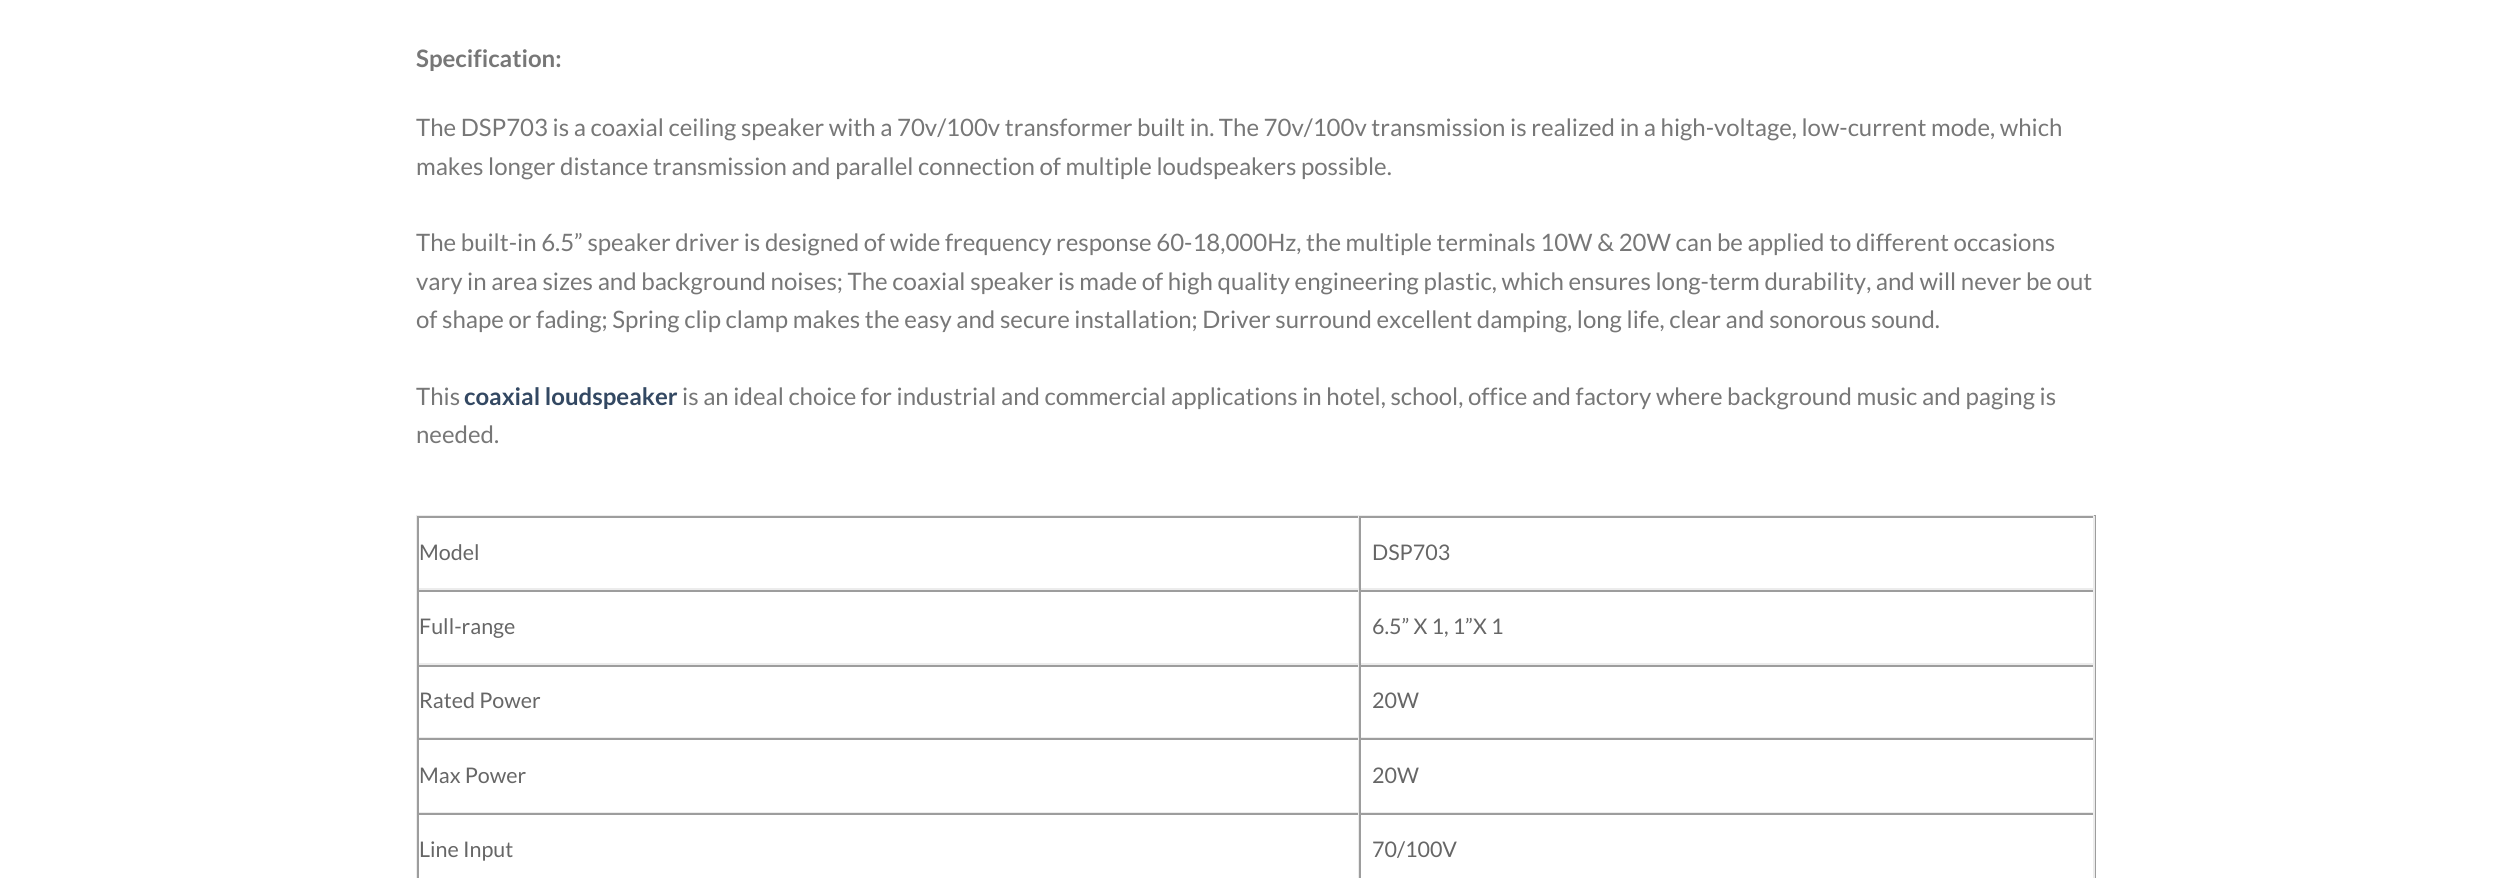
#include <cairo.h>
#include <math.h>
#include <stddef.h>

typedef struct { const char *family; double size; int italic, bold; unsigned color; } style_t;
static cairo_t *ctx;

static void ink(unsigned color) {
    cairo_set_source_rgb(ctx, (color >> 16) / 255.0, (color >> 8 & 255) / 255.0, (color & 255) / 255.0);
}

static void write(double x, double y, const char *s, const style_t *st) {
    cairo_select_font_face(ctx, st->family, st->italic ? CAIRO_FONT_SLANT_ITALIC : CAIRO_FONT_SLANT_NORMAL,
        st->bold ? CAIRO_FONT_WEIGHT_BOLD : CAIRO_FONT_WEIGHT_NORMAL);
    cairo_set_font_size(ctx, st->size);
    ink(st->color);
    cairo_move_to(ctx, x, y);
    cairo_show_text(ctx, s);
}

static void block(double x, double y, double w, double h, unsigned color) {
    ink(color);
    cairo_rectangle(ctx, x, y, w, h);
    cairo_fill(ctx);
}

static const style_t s1 = {"Lato", 24, 0, 1, 0x777777};
static const style_t s2 = {"Lato", 24, 0, 0, 0x777777};
static const style_t s3 = {"Lato", 24, 0, 1, 0x334862};
static const style_t s4 = {"Lato", 21.5, 0, 0, 0x666666};

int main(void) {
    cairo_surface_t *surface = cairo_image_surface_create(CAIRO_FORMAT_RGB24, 2510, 878);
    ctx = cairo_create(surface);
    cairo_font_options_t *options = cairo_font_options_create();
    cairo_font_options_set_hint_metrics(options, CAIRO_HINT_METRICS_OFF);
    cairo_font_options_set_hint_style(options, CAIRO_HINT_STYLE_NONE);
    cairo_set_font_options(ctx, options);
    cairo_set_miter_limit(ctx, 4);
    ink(0xffffff);
    cairo_paint(ctx);
    write(416, 67, "Specification:", &s1);
    write(416, 136, "The DSP703 is a coaxial ceiling speaker with a 70v/100v transformer built in. The 70v/100v transmission is realized in a high-voltage, low-current mode, which", &s2);
    write(416, 175, "makes longer distance transmission and parallel connection of multiple loudspeakers possible.", &s2);
    write(416, 251, "The built-in 6.5” speaker driver is designed of wide frequency response 60-18,000Hz, the multiple terminals 10W & 20W can be applied to different occasions", &s2);
    write(416, 290, "vary in area sizes and background noises; The coaxial speaker is made of high quality engineering plastic, which ensures long-term durability, and will never be out", &s2);
    write(416, 328, "of shape or fading; Spring clip clamp makes the easy and secure installation; Driver surround excellent damping, long life, clear and sonorous sound.", &s2);
    write(416, 405, "This", &s2);
    write(464, 405, "coaxial loudspeaker", &s3);
    write(682, 405, "is an ideal choice for industrial and commercial applications in hotel, school, office and factory where background music and paging is", &s2);
    write(416, 443, "needed.", &s2);
    block(416, 515, 1680, 1, 0xececec);
    block(2094, 515, 2, 363, 0x9d9d9d);
    block(416, 515, 2, 363, 0xececec);
    block(417, 516, 1677, 2, 0x9d9d9d);
    block(1358, 516, 1, 74, 0xececec);
    block(417, 588, 942, 2, 0xececec);
    block(417, 516, 2, 74, 0x9d9d9d);
    write(419, 560, "Model", &s4);
    block(2093, 516, 2, 74, 0xececec);
    block(1359, 588, 735, 2, 0xececec);
    block(1359, 516, 2, 74, 0x9d9d9d);
    write(1372, 560, "DSP703", &s4);
    block(417, 590, 1677, 2, 0x9d9d9d);
    block(1358, 590, 1, 75, 0xececec);
    block(417, 663, 942, 2, 0xececec);
    block(417, 590, 2, 75, 0x9d9d9d);
    write(419, 634, "Full-range", &s4);
    block(2093, 590, 2, 75, 0xececec);
    block(1359, 663, 735, 2, 0xececec);
    block(1359, 590, 2, 75, 0x9d9d9d);
    write(1372, 634, "6.5” X 1, 1”X 1", &s4);
    block(417, 665, 1677, 2, 0x9d9d9d);
    block(1358, 665, 1, 73, 0xececec);
    block(417, 737, 942, 1, 0xececec);
    block(417, 665, 2, 73, 0x9d9d9d);
    write(419, 708, "Rated Power", &s4);
    block(2093, 665, 2, 73, 0xececec);
    block(1359, 737, 735, 1, 0xececec);
    block(1359, 665, 2, 73, 0x9d9d9d);
    write(1372, 708, "20W", &s4);
    block(417, 738, 1677, 2, 0x9d9d9d);
    block(1358, 738, 1, 75, 0xececec);
    block(417, 812, 942, 1, 0xececec);
    block(417, 738, 2, 75, 0x9d9d9d);
    write(419, 783, "Max Power", &s4);
    block(2093, 738, 2, 75, 0xececec);
    block(1359, 812, 735, 1, 0xececec);
    block(1359, 738, 2, 75, 0x9d9d9d);
    write(1372, 783, "20W", &s4);
    block(417, 813, 1677, 2, 0x9d9d9d);
    block(1358, 813, 1, 65, 0xececec);
    block(417, 813, 2, 65, 0x9d9d9d);
    write(419, 857, "Line Input", &s4);
    block(2093, 813, 2, 65, 0xececec);
    block(1359, 813, 2, 65, 0x9d9d9d);
    write(1372, 857, "70/100V", &s4);
    cairo_surface_write_to_png(surface, "screenshot.png");
    cairo_font_options_destroy(options);
    cairo_destroy(ctx);
    cairo_surface_destroy(surface);
    return 0;
}
